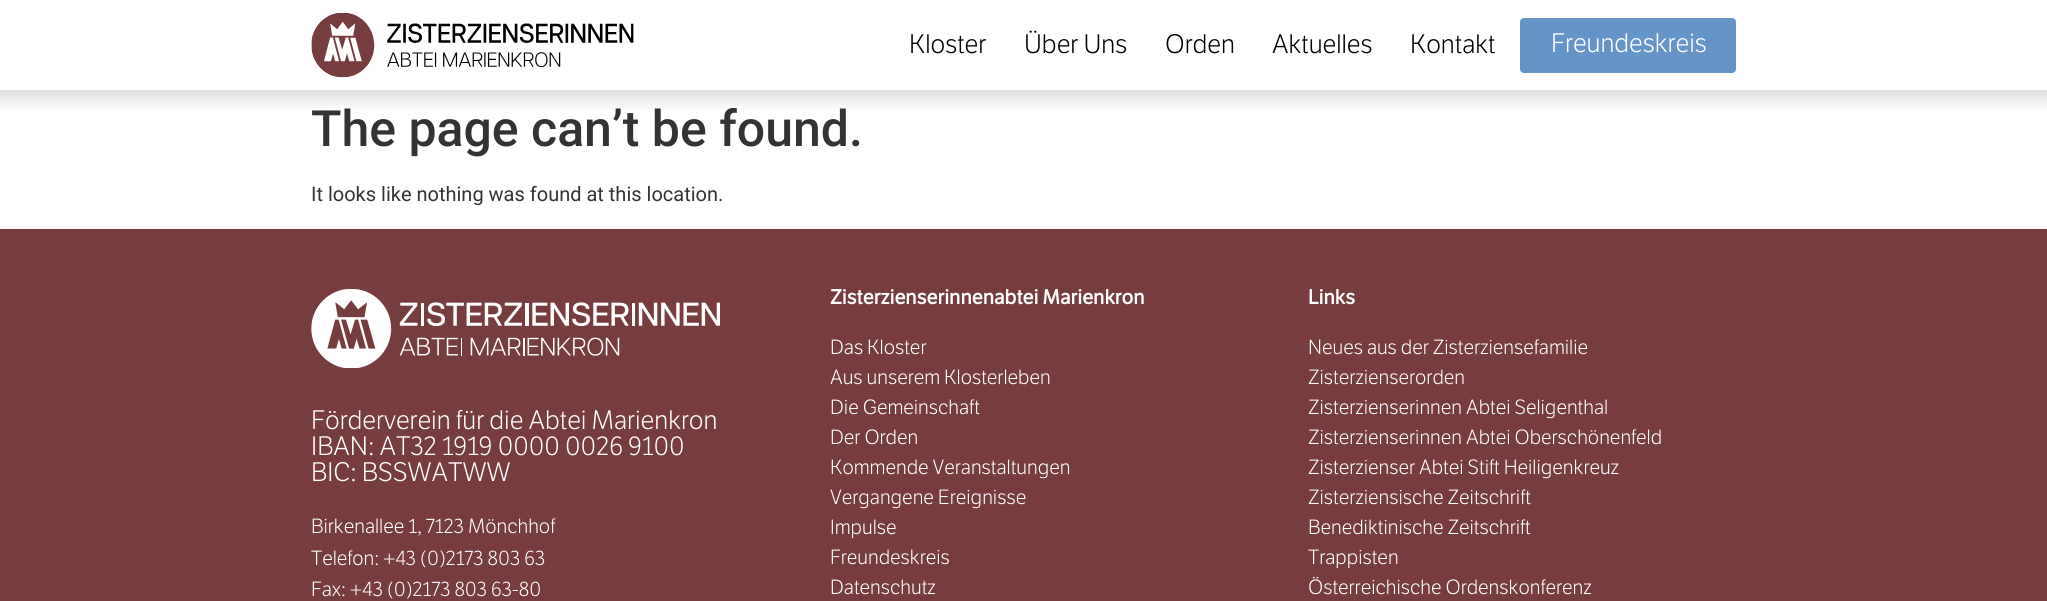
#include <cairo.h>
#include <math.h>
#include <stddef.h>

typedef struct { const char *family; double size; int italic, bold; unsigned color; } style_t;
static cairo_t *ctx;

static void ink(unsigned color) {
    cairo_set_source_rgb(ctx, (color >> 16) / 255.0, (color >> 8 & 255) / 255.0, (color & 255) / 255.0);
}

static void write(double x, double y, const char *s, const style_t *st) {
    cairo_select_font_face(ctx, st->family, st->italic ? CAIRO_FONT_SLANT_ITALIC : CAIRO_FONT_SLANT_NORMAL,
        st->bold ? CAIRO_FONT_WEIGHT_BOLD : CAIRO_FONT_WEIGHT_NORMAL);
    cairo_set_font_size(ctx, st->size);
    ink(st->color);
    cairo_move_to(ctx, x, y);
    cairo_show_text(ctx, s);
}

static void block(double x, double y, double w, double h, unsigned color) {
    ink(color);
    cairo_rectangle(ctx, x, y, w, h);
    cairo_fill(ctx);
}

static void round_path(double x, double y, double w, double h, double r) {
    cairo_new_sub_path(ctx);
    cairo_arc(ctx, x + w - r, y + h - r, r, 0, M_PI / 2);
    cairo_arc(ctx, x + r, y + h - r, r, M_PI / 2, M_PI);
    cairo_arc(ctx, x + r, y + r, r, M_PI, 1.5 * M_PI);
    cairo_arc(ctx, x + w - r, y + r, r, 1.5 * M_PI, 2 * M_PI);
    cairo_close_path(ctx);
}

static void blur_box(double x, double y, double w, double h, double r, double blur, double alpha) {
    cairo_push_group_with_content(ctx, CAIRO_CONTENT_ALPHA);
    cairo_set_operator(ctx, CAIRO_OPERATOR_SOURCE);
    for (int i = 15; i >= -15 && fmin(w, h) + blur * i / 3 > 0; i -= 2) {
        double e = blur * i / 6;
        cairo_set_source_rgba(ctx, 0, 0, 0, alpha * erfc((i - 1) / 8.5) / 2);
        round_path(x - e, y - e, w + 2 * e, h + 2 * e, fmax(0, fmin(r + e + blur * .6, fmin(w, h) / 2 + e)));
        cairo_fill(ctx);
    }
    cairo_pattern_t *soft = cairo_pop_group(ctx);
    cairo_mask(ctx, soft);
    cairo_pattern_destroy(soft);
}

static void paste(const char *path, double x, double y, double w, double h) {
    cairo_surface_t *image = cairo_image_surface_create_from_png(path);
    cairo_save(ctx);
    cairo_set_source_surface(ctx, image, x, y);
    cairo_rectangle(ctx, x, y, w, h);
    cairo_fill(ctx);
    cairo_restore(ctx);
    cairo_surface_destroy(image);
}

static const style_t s1 = {"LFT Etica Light", 26, 0, 0, 0x000000};
static const style_t s2 = {"LFT Etica Light", 26, 0, 0, 0xffffff};
static const style_t s3 = {"Roboto Medium", 50, 0, 0, 0x333333};
static const style_t s4 = {"Roboto", 20, 0, 0, 0x333333};
static const style_t s5 = {"LFT Etica Light", 20, 0, 0, 0xffffff};
static const style_t s6 = {"LFT Etica", 20, 0, 1, 0xffffff};

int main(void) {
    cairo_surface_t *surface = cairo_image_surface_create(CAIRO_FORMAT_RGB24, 2047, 601);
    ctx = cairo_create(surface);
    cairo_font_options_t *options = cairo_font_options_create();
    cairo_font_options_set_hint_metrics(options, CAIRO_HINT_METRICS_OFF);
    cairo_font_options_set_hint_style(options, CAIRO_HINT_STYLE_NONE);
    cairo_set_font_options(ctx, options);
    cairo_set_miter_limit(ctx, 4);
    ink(0xffffff);
    cairo_paint(ctx);
    cairo_save(ctx);
    cairo_rectangle(ctx, 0, 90, 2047, 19);
    cairo_clip(ctx);
    ink(0x000000);
    blur_box(-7, -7, 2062, 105, 0, 9.5, 0.17);
    cairo_restore(ctx);
    paste("pic1.png", 311, 13, 323, 65);
    write(909, 53, "Kloster", &s1);
    write(1024, 53, "Über Uns", &s1);
    write(1165, 53, "Orden", &s1);
    write(1272, 53, "Aktuelles", &s1);
    write(1410, 53, "Kontakt", &s1);
    ink(0x6595c8);
    round_path(1520, 18, 216, 55, 4);
    cairo_fill(ctx);
    write(1551, 52, "Freundeskreis", &s2);
    write(311, 146, "The page can’t be found.", &s3);
    write(311, 201, "It looks like nothing was found at this location.", &s4);
    block(0, 229, 2047, 372, 0x773d3e);
    paste("pic2.png", 311, 289, 409, 79);
    write(311, 429, "Förderverein für die Abtei Marienkron", &s2);
    write(311, 455, "IBAN: AT32 1919 0000 0026 9100", &s2);
    write(311, 481, "BIC: BSSWATWW", &s2);
    write(311, 533, "Birkenallee 1, 7123 Mönchhof", &s5);
    write(311, 565, "Telefon: +43 (0)2173 803 63", &s5);
    write(311, 596, "Fax: +43 (0)2173 803 63-80", &s5);
    write(830, 304, "Zisterzienserinnenabtei Marienkron", &s6);
    write(830, 354, "Das Kloster", &s5);
    write(830, 384, "Aus unserem Klosterleben", &s5);
    write(830, 414, "Die Gemeinschaft", &s5);
    write(830, 444, "Der Orden", &s5);
    write(830, 474, "Kommende Veranstaltungen", &s5);
    write(830, 504, "Vergangene Ereignisse", &s5);
    write(830, 534, "Impulse", &s5);
    write(830, 564, "Freundeskreis", &s5);
    write(830, 594, "Datenschutz", &s5);
    write(1308, 304, "Links", &s6);
    write(1308, 354, "Neues aus der Zisterziensefamilie", &s5);
    write(1308, 384, "Zisterzienserorden", &s5);
    write(1308, 414, "Zisterzienserinnen Abtei Seligenthal", &s5);
    write(1308, 444, "Zisterzienserinnen Abtei Oberschönenfeld", &s5);
    write(1308, 474, "Zisterzienser Abtei Stift Heiligenkreuz", &s5);
    write(1308, 504, "Zisterziensische Zeitschrift", &s5);
    write(1308, 534, "Benediktinische Zeitschrift", &s5);
    write(1308, 564, "Trappisten", &s5);
    write(1308, 594, "Österreichische Ordenskonferenz", &s5);
    cairo_surface_write_to_png(surface, "screenshot.png");
    cairo_font_options_destroy(options);
    cairo_destroy(ctx);
    cairo_surface_destroy(surface);
    return 0;
}
